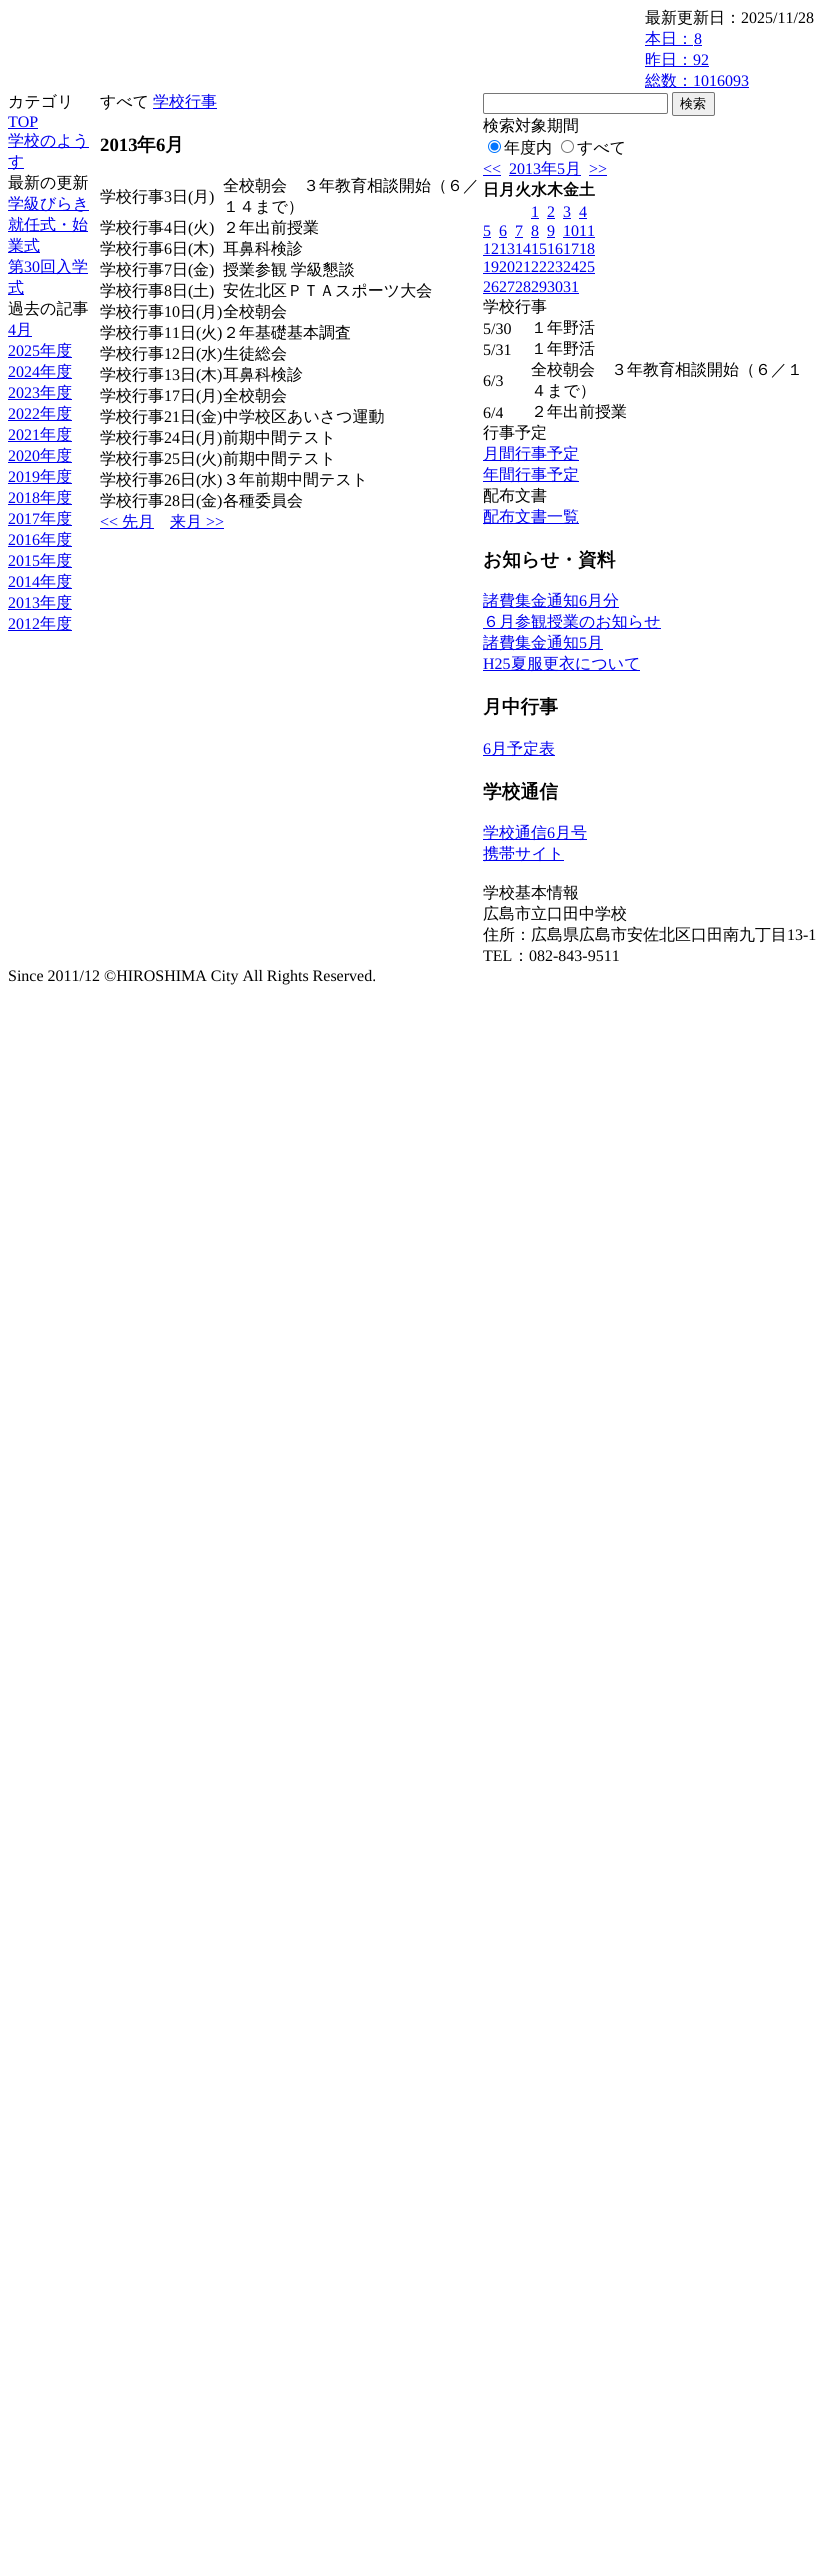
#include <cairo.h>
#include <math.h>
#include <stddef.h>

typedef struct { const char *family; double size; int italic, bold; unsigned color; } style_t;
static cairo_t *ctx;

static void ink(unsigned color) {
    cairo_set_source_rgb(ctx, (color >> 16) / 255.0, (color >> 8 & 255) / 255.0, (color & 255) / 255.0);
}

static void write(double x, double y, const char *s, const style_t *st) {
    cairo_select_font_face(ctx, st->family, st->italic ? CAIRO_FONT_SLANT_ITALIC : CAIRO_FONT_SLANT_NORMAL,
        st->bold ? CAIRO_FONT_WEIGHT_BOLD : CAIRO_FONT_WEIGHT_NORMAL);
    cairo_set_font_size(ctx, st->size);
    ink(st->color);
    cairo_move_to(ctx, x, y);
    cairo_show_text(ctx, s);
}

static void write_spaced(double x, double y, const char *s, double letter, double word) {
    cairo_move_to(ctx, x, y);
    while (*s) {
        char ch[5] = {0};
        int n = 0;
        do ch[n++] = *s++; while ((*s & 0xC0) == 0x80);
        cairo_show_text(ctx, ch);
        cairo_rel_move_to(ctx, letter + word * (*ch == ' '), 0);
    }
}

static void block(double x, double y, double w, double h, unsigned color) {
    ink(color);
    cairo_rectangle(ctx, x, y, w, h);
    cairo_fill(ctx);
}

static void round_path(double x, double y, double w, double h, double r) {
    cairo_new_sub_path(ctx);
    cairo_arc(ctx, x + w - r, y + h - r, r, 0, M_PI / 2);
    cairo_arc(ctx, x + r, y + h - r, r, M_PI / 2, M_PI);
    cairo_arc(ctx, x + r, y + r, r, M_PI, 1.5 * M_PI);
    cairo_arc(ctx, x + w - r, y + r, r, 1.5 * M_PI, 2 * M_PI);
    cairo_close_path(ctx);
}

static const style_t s1 = {"WenQuanYi Zen Hei Medium", 16, 0, 0, 0x000000};
static const style_t s2 = {"Liberation Serif", 16, 0, 0, 0x000000};
static const style_t s3 = {"WenQuanYi Zen Hei Medium", 16, 0, 0, 0x0000ee};
static const style_t s4 = {"Liberation Serif", 16, 0, 0, 0x0000ee};
static const style_t s5 = {"Liberation Serif", 18.75, 0, 1, 0x000000};
static const style_t s6 = {"WenQuanYi Zen Hei", 18.75, 0, 1, 0x000000};
static const style_t s7 = {"WenQuanYi Zen Hei Medium", 13, 0, 0, 0x000000};
static const style_t s8 = {"WenQuanYi Zen Hei", 16, 0, 1, 0x000000};

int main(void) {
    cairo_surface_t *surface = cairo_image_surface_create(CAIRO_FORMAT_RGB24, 826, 2574);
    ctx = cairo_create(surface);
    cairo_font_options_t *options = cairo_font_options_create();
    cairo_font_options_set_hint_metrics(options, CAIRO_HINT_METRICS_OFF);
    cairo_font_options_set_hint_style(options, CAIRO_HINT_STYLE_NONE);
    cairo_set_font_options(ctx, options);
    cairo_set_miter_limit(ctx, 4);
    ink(0xffffff);
    cairo_paint(ctx);
    write(645, 23, "最新更新日：", &s1);
    write(741, 23, "2025/11/28", &s2);
    block(645, 45, 48, 1, 0x0000ee);
    write(645, 44, "本日：", &s3);
    write(694, 44, "8", &s4);
    block(694, 45, 8, 1, 0x0000ee);
    block(645, 66, 64, 1, 0x0000ee);
    write(645, 65, "昨日：", &s3);
    write(693, 65, "92", &s4);
    block(645, 87, 104, 1, 0x0000ee);
    write(645, 86, "総数：", &s3);
    write(693, 86, "1016093", &s4);
    write(8, 107, "カテゴリ", &s1);
    write(8, 127, "TOP", &s4);
    block(8, 128, 30, 1, 0x0000ee);
    block(8, 147, 81, 1, 0x0000ee);
    write(8, 146, "学校のよう", &s3);
    block(8, 168, 16, 1, 0x0000ee);
    write(8, 167, "す", &s3);
    write(8, 188, "最新の更新", &s1);
    block(8, 210, 81, 1, 0x0000ee);
    write(8, 209, "学級びらき", &s3);
    block(8, 231, 80, 1, 0x0000ee);
    write(8, 230, "就任式・始", &s3);
    block(8, 252, 32, 1, 0x0000ee);
    write(8, 251, "業式", &s3);
    block(8, 273, 80, 1, 0x0000ee);
    write(8, 272, "第", &s3);
    write(24, 272, "30", &s4);
    write(40, 272, "回入学", &s3);
    block(8, 294, 16, 1, 0x0000ee);
    write(8, 293, "式", &s3);
    write(8, 314, "過去の記事", &s1);
    write(8, 335, "4", &s4);
    block(8, 336, 24, 1, 0x0000ee);
    write(16, 335, "月", &s3);
    write(8, 356, "2025", &s4);
    block(8, 357, 64, 1, 0x0000ee);
    write(40, 356, "年度", &s3);
    write(8, 377, "2024", &s4);
    block(8, 378, 64, 1, 0x0000ee);
    write(40, 377, "年度", &s3);
    write(8, 398, "2023", &s4);
    block(8, 399, 64, 1, 0x0000ee);
    write(40, 398, "年度", &s3);
    write(8, 419, "2022", &s4);
    block(8, 420, 64, 1, 0x0000ee);
    write(40, 419, "年度", &s3);
    write(8, 440, "2021", &s4);
    block(8, 441, 64, 1, 0x0000ee);
    write(40, 440, "年度", &s3);
    write(8, 461, "2020", &s4);
    block(8, 462, 64, 1, 0x0000ee);
    write(40, 461, "年度", &s3);
    write(8, 482, "2019", &s4);
    block(8, 483, 64, 1, 0x0000ee);
    write(40, 482, "年度", &s3);
    write(8, 503, "2018", &s4);
    block(8, 504, 64, 1, 0x0000ee);
    write(40, 503, "年度", &s3);
    write(8, 524, "2017", &s4);
    block(8, 525, 64, 1, 0x0000ee);
    write(40, 524, "年度", &s3);
    write(8, 545, "2016", &s4);
    block(8, 546, 64, 1, 0x0000ee);
    write(40, 545, "年度", &s3);
    write(8, 566, "2015", &s4);
    block(8, 567, 64, 1, 0x0000ee);
    write(40, 566, "年度", &s3);
    write(8, 587, "2014", &s4);
    block(8, 588, 64, 1, 0x0000ee);
    write(40, 587, "年度", &s3);
    write(8, 608, "2013", &s4);
    block(8, 609, 64, 1, 0x0000ee);
    write(40, 608, "年度", &s3);
    write(8, 629, "2012", &s4);
    block(8, 630, 64, 1, 0x0000ee);
    write(40, 629, "年度", &s3);
    write(100, 107, "すべて", &s1);
    block(153, 108, 64, 1, 0x0000ee);
    write(153, 107, "学校行事", &s3);
    write(100, 151, "2013", &s5);
    write(137, 151, "年", &s6);
    write(156, 151, "6", &s5);
    write(165, 151, "月", &s6);
    write(100, 202, "学校行事", &s1);
    write(164, 202, "3", &s2);
    write(172, 202, "日", &s1);
    write(188, 202, "(", &s2);
    write(193, 202, "月", &s1);
    write(209, 202, ")", &s2);
    write(223, 191, "全校朝会　３年教育相談開始（６／", &s1);
    write(223, 212, "１４まで）", &s1);
    write(100, 233, "学校行事", &s1);
    write(164, 233, "4", &s2);
    write(172, 233, "日", &s1);
    write(188, 233, "(", &s2);
    write(193, 233, "火", &s1);
    write(209, 233, ")", &s2);
    write(223, 233, "２年出前授業", &s1);
    write(100, 254, "学校行事", &s1);
    write(164, 254, "6", &s2);
    write(172, 254, "日", &s1);
    write(188, 254, "(", &s2);
    write(193, 254, "木", &s1);
    write(209, 254, ")", &s2);
    write(223, 254, "耳鼻科検診", &s1);
    write(100, 275, "学校行事", &s1);
    write(164, 275, "7", &s2);
    write(172, 275, "日", &s1);
    write(188, 275, "(", &s2);
    write(193, 275, "金", &s1);
    write(209, 275, ")", &s2);
    cairo_select_font_face(ctx, "WenQuanYi Zen Hei Medium", CAIRO_FONT_SLANT_NORMAL, CAIRO_FONT_WEIGHT_NORMAL);
    write_spaced(223, 275, "授業参観 学級懇談", 0, -1);
    write(100, 296, "学校行事", &s1);
    write(164, 296, "8", &s2);
    write(172, 296, "日", &s1);
    write(188, 296, "(", &s2);
    write(193, 296, "土", &s1);
    write(209, 296, ")", &s2);
    write(223, 296, "安佐北区ＰＴＡスポーツ大会", &s1);
    write(100, 317, "学校行事", &s1);
    write(164, 317, "10", &s2);
    write(180, 317, "日", &s1);
    write(196, 317, "(", &s2);
    write(201, 317, "月", &s1);
    write(217, 317, ")", &s2);
    write(223, 317, "全校朝会", &s1);
    write(100, 338, "学校行事", &s1);
    write(164, 338, "11", &s2);
    write(180, 338, "日", &s1);
    write(196, 338, "(", &s2);
    write(201, 338, "火", &s1);
    write(217, 338, ")", &s2);
    write(223, 338, "２年基礎基本調査", &s1);
    write(100, 359, "学校行事", &s1);
    write(164, 359, "12", &s2);
    write(180, 359, "日", &s1);
    write(196, 359, "(", &s2);
    write(201, 359, "水", &s1);
    write(217, 359, ")", &s2);
    write(223, 359, "生徒総会", &s1);
    write(100, 380, "学校行事", &s1);
    write(164, 380, "13", &s2);
    write(180, 380, "日", &s1);
    write(196, 380, "(", &s2);
    write(201, 380, "木", &s1);
    write(217, 380, ")", &s2);
    write(223, 380, "耳鼻科検診", &s1);
    write(100, 401, "学校行事", &s1);
    write(164, 401, "17", &s2);
    write(180, 401, "日", &s1);
    write(196, 401, "(", &s2);
    write(201, 401, "月", &s1);
    write(217, 401, ")", &s2);
    write(223, 401, "全校朝会", &s1);
    write(100, 422, "学校行事", &s1);
    write(164, 422, "21", &s2);
    write(180, 422, "日", &s1);
    write(196, 422, "(", &s2);
    write(201, 422, "金", &s1);
    write(217, 422, ")", &s2);
    write(223, 422, "中学校区あいさつ運動", &s1);
    write(100, 443, "学校行事", &s1);
    write(164, 443, "24", &s2);
    write(180, 443, "日", &s1);
    write(196, 443, "(", &s2);
    write(201, 443, "月", &s1);
    write(217, 443, ")", &s2);
    write(223, 443, "前期中間テスト", &s1);
    write(100, 464, "学校行事", &s1);
    write(164, 464, "25", &s2);
    write(180, 464, "日", &s1);
    write(196, 464, "(", &s2);
    write(201, 464, "火", &s1);
    write(217, 464, ")", &s2);
    write(223, 464, "前期中間テスト", &s1);
    write(100, 485, "学校行事", &s1);
    write(164, 485, "26", &s2);
    write(180, 485, "日", &s1);
    write(196, 485, "(", &s2);
    write(201, 485, "水", &s1);
    write(217, 485, ")", &s2);
    write(223, 485, "３年前期中間テスト", &s1);
    write(100, 506, "学校行事", &s1);
    write(164, 506, "28", &s2);
    write(180, 506, "日", &s1);
    write(196, 506, "(", &s2);
    write(201, 506, "金", &s1);
    write(217, 506, ")", &s2);
    write(223, 506, "各種委員会", &s1);
    write(100, 527, "<<", &s4);
    block(100, 528, 54, 1, 0x0000ee);
    write(122, 527, "先月", &s3);
    block(170, 528, 54, 1, 0x0000ee);
    write(170, 527, "来月", &s3);
    write(206, 527, ">>", &s4);
    round_path(483.5, 93.5, 184, 20, 1.5);
    ink(0x767676);
    cairo_set_line_width(ctx, 1);
    cairo_stroke(ctx);
    ink(0xefefef);
    round_path(672.5, 92.5, 42, 23, 1.5);
    cairo_fill_preserve(ctx);
    ink(0x767676);
    cairo_stroke(ctx);
    write(680, 108, "検索", &s7);
    write(483, 131, "検索対象期間", &s1);
    cairo_new_path(ctx);
    cairo_arc(ctx, 494.5, 146.5, 6, 0, 2 * M_PI);
    ink(0x0075ff);
    cairo_stroke(ctx);
    cairo_arc(ctx, 494.5, 146.5, 4, 0, 2 * M_PI);
    cairo_fill(ctx);
    write(504, 153, "年度内", &s1);
    cairo_new_path(ctx);
    cairo_arc(ctx, 567.5, 146.5, 6, 0, 2 * M_PI);
    ink(0x767676);
    cairo_stroke(ctx);
    write(577, 153, "すべて", &s1);
    write(483, 174, "<<", &s4);
    block(483, 175, 18, 1, 0x0000ee);
    write(509, 174, "2013", &s4);
    block(509, 175, 72, 1, 0x0000ee);
    write(541, 174, "年", &s3);
    write(557, 174, "5", &s4);
    write(565, 174, "月", &s3);
    write(589, 174, ">>", &s4);
    block(589, 175, 18, 1, 0x0000ee);
    write(483, 195, "日月火水木金土", &s8);
    write(531, 217, "1", &s4);
    block(531, 218, 8, 1, 0x0000ee);
    write(547, 217, "2", &s4);
    block(547, 218, 8, 1, 0x0000ee);
    write(563, 217, "3", &s4);
    block(563, 218, 8, 1, 0x0000ee);
    write(579, 217, "4", &s4);
    block(579, 218, 8, 1, 0x0000ee);
    write(483, 236, "5", &s4);
    block(483, 237, 8, 1, 0x0000ee);
    write(499, 236, "6", &s4);
    block(499, 237, 8, 1, 0x0000ee);
    write(515, 236, "7", &s4);
    block(515, 237, 8, 1, 0x0000ee);
    write(531, 236, "8", &s4);
    block(531, 237, 8, 1, 0x0000ee);
    write(547, 236, "9", &s4);
    block(547, 237, 8, 1, 0x0000ee);
    write(563, 236, "1011", &s4);
    block(563, 237, 32, 1, 0x0000ee);
    write(483, 254, "12131415161718", &s4);
    block(483, 255, 112, 1, 0x0000ee);
    write(483, 272, "19202122232425", &s4);
    block(483, 273, 112, 1, 0x0000ee);
    write(483, 292, "262728293031", &s4);
    block(483, 293, 96, 1, 0x0000ee);
    write(483, 312, "学校行事", &s1);
    write(483, 334, "5/30", &s2);
    write(531, 333, "１年野活", &s1);
    write(483, 355, "5/31", &s2);
    write(531, 354, "１年野活", &s1);
    write(483, 386, "6/3", &s2);
    write(531, 375, "全校朝会　３年教育相談開始（６／１", &s1);
    write(531, 396, "４まで）", &s1);
    write(483, 418, "6/4", &s2);
    write(531, 417, "２年出前授業", &s1);
    write(483, 438, "行事予定", &s1);
    block(483, 460, 96, 1, 0x0000ee);
    write(483, 459, "月間行事予定", &s3);
    block(483, 481, 96, 1, 0x0000ee);
    write(483, 480, "年間行事予定", &s3);
    write(483, 501, "配布文書", &s1);
    block(483, 523, 96, 1, 0x0000ee);
    write(483, 522, "配布文書一覧", &s3);
    write(483, 566, "お知らせ・資料", &s6);
    block(483, 607, 136, 1, 0x0000ee);
    write(483, 606, "諸費集金通知", &s3);
    write(579, 606, "6", &s4);
    write(587, 606, "月分", &s3);
    block(483, 628, 178, 1, 0x0000ee);
    write(483, 627, "６月参観授業のお知らせ", &s3);
    block(483, 649, 120, 1, 0x0000ee);
    write(483, 648, "諸費集金通知", &s3);
    write(579, 648, "5", &s4);
    write(587, 648, "月", &s3);
    write(483, 669, "H25", &s4);
    block(483, 670, 157, 1, 0x0000ee);
    write(511, 669, "夏服更衣について", &s3);
    write(483, 713, "月中行事", &s6);
    write(483, 754, "6", &s4);
    block(483, 755, 72, 1, 0x0000ee);
    write(491, 754, "月予定表", &s3);
    write(483, 798, "学校通信", &s6);
    block(483, 839, 104, 1, 0x0000ee);
    write(483, 838, "学校通信", &s3);
    write(547, 838, "6", &s4);
    write(555, 838, "月号", &s3);
    block(483, 860, 81, 1, 0x0000ee);
    write(483, 859, "携帯サイト", &s3);
    write(483, 898, "学校基本情報", &s1);
    write(483, 919, "広島市立口田中学校", &s1);
    write(483, 940, "住所：広島県広島市安佐北区口田南九丁目", &s1);
    write(787, 940, "13-1", &s2);
    write(483, 961, "TEL", &s2);
    write(513, 961, "：", &s1);
    write(529, 961, "082-843-9511", &s2);
    write(8, 981, "Since 2011/12 ©HIROSHIMA City All Rights Reserved.", &s2);
    cairo_surface_write_to_png(surface, "screenshot.png");
    cairo_font_options_destroy(options);
    cairo_destroy(ctx);
    cairo_surface_destroy(surface);
    return 0;
}
